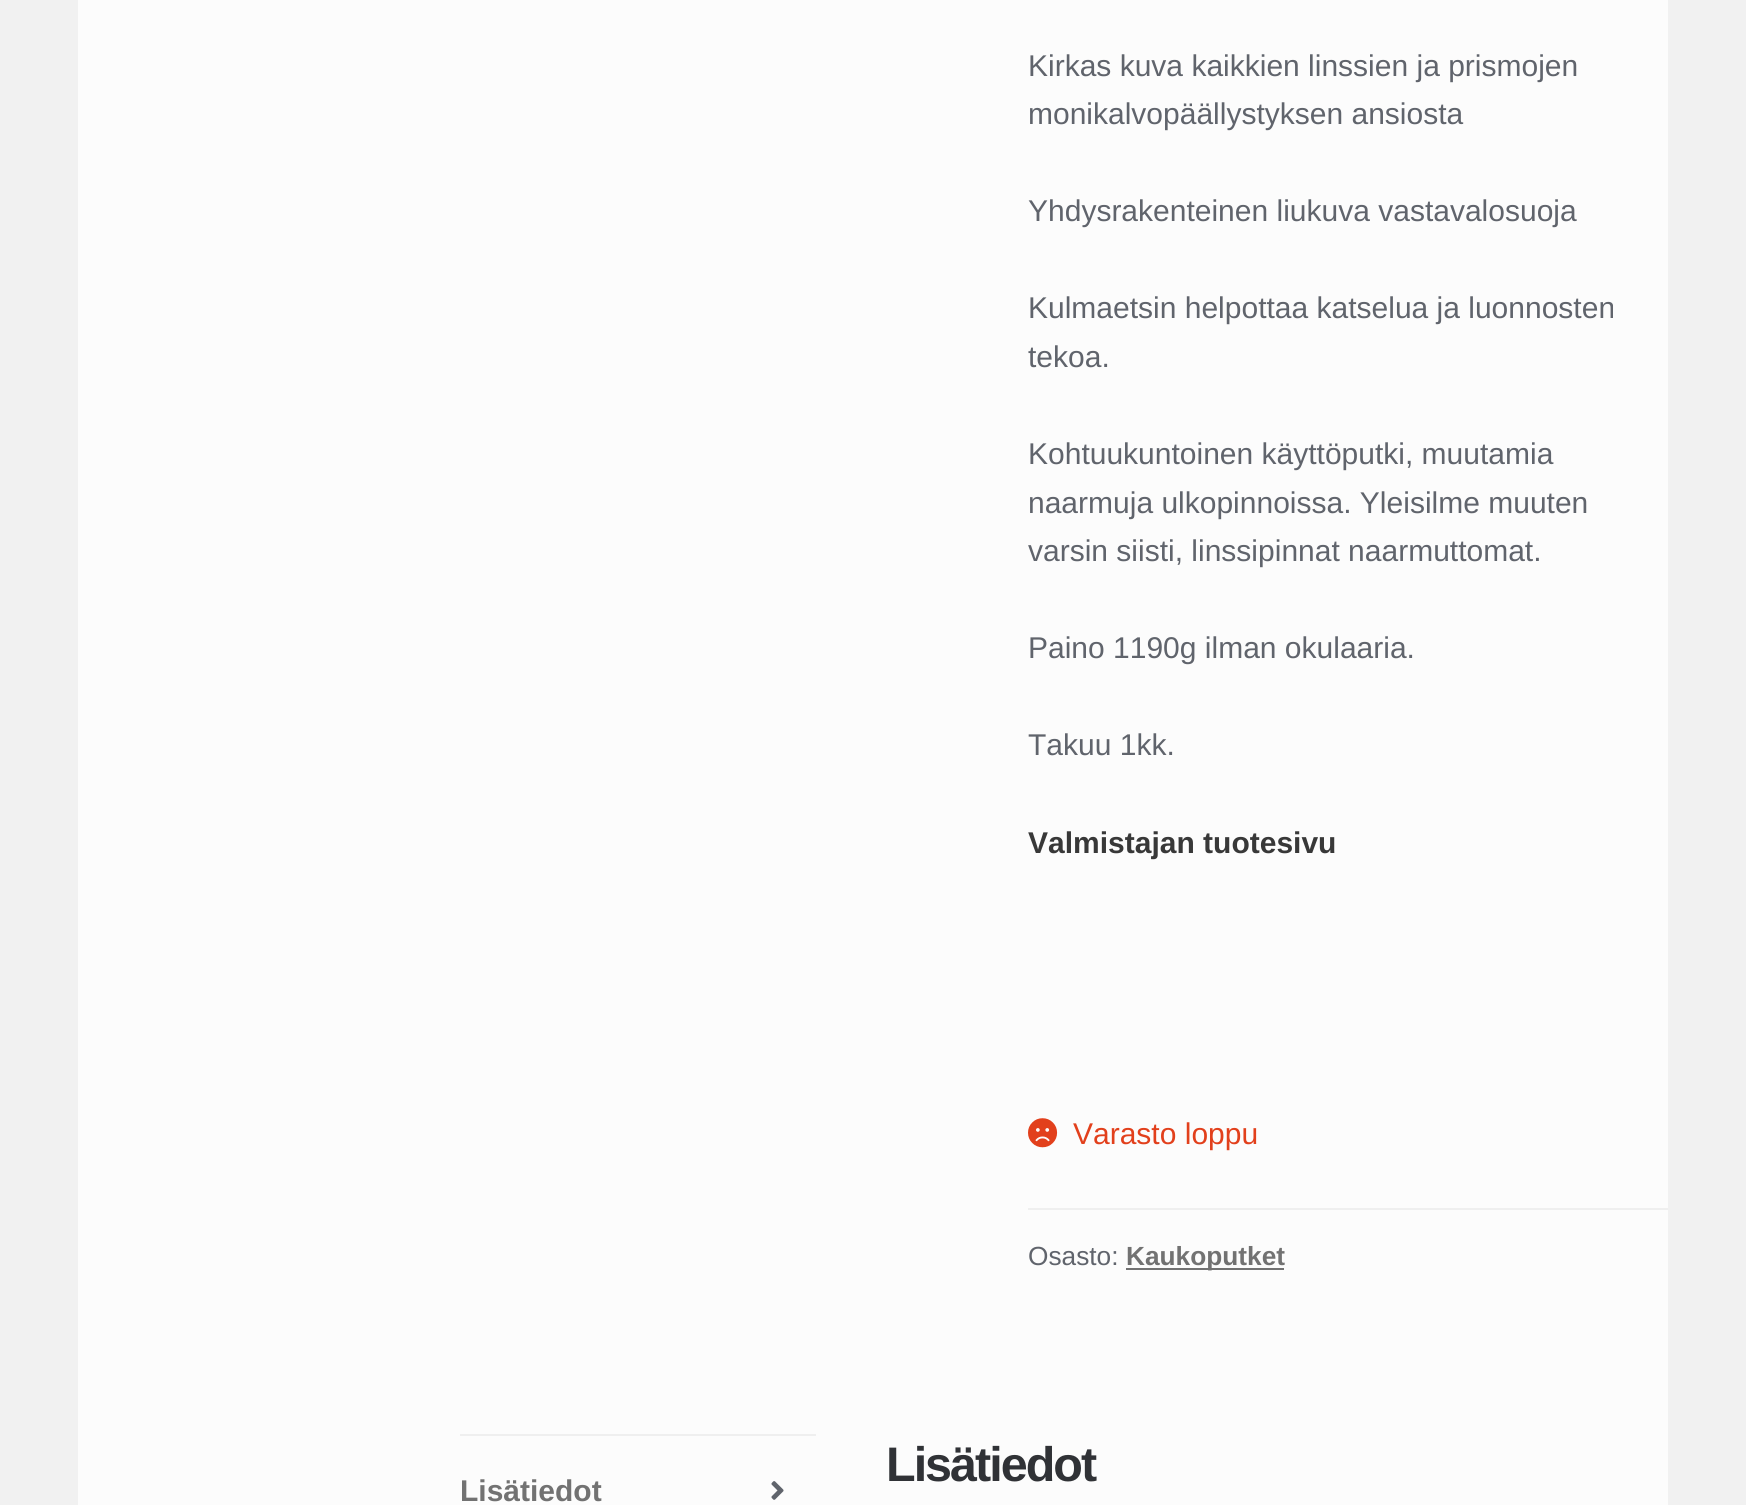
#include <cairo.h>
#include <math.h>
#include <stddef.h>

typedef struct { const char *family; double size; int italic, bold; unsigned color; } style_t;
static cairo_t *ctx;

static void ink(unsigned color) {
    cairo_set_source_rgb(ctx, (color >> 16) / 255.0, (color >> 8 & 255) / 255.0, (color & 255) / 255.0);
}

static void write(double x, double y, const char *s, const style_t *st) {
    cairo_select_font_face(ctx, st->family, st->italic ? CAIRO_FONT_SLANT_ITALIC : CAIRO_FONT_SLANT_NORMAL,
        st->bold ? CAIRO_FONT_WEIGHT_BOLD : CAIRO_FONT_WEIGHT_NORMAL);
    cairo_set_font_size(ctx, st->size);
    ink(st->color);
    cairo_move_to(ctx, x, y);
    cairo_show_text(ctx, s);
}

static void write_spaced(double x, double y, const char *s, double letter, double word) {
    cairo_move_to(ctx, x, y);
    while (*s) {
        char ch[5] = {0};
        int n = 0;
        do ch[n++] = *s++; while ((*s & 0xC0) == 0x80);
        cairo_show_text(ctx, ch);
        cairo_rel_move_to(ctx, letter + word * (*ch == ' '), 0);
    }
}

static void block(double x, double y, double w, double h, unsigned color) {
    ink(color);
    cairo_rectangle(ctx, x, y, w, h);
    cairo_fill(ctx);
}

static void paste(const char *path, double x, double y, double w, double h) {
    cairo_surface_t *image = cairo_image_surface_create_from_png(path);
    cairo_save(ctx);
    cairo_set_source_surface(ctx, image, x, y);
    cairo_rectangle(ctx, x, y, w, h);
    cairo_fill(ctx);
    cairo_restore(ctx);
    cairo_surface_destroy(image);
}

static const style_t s1 = {"Liberation Sans", 30, 0, 0, 0x60646c};
static const style_t s2 = {"Liberation Sans", 30, 0, 1, 0x383838};
static const style_t s3 = {"Liberation Sans", 30, 0, 0, 0xe2401c};
static const style_t s4 = {"Liberation Sans", 26.25, 0, 0, 0x60646c};
static const style_t s5 = {"Liberation Sans", 26.25, 0, 1, 0x727272};
static const style_t s6 = {"Liberation Sans", 30, 0, 1, 0x727272};

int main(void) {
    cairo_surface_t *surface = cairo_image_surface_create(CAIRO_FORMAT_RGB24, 1746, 1505);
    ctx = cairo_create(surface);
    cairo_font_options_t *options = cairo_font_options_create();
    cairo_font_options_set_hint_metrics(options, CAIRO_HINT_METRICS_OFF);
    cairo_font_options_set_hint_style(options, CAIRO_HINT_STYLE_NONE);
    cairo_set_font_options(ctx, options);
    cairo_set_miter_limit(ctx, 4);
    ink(0xf1f1f1);
    cairo_paint(ctx);
    block(78, 0, 1590, 1505, 0xfcfcfc);
    write(1028, 76, "Kirkas kuva kaikkien linssien ja prismojen", &s1);
    write(1028, 124, "monikalvopäällystyksen ansiosta", &s1);
    write(1028, 221, "Yhdysrakenteinen liukuva vastavalosuoja", &s1);
    write(1028, 318, "Kulmaetsin helpottaa katselua ja luonnosten", &s1);
    write(1028, 367, "tekoa.", &s1);
    write(1028, 464, "Kohtuukuntoinen käyttöputki, muutamia", &s1);
    write(1028, 513, "naarmuja ulkopinnoissa. Yleisilme muuten", &s1);
    write(1028, 561, "varsin siisti, linssipinnat naarmuttomat.", &s1);
    write(1028, 658, "Paino 1190g ilman okulaaria.", &s1);
    write(1028, 755, "Takuu 1kk.", &s1);
    write(1028, 853, "Valmistajan tuotesivu", &s2);
    paste("pic1.png", 1028, 1118, 30, 30);
    write(1073, 1144, "Varasto loppu", &s3);
    block(1028, 1208, 640, 2, 0xefefef);
    write(1028, 1265, "Osasto:", &s4);
    block(1126, 1268, 158, 2, 0x727272);
    write(1126, 1265, "Kaukoputket", &s5);
    cairo_set_font_size(ctx, 48.5);
    ink(0x303236);
    write_spaced(886, 1481, "Lisätiedot", -2, 0);
    block(460, 1434, 356, 2, 0xefefef);
    write(460, 1501, "Lisätiedot", &s6);
    paste("pic2.png", 771, 1481, 13, 19);
    cairo_surface_write_to_png(surface, "screenshot.png");
    cairo_font_options_destroy(options);
    cairo_destroy(ctx);
    cairo_surface_destroy(surface);
    return 0;
}
